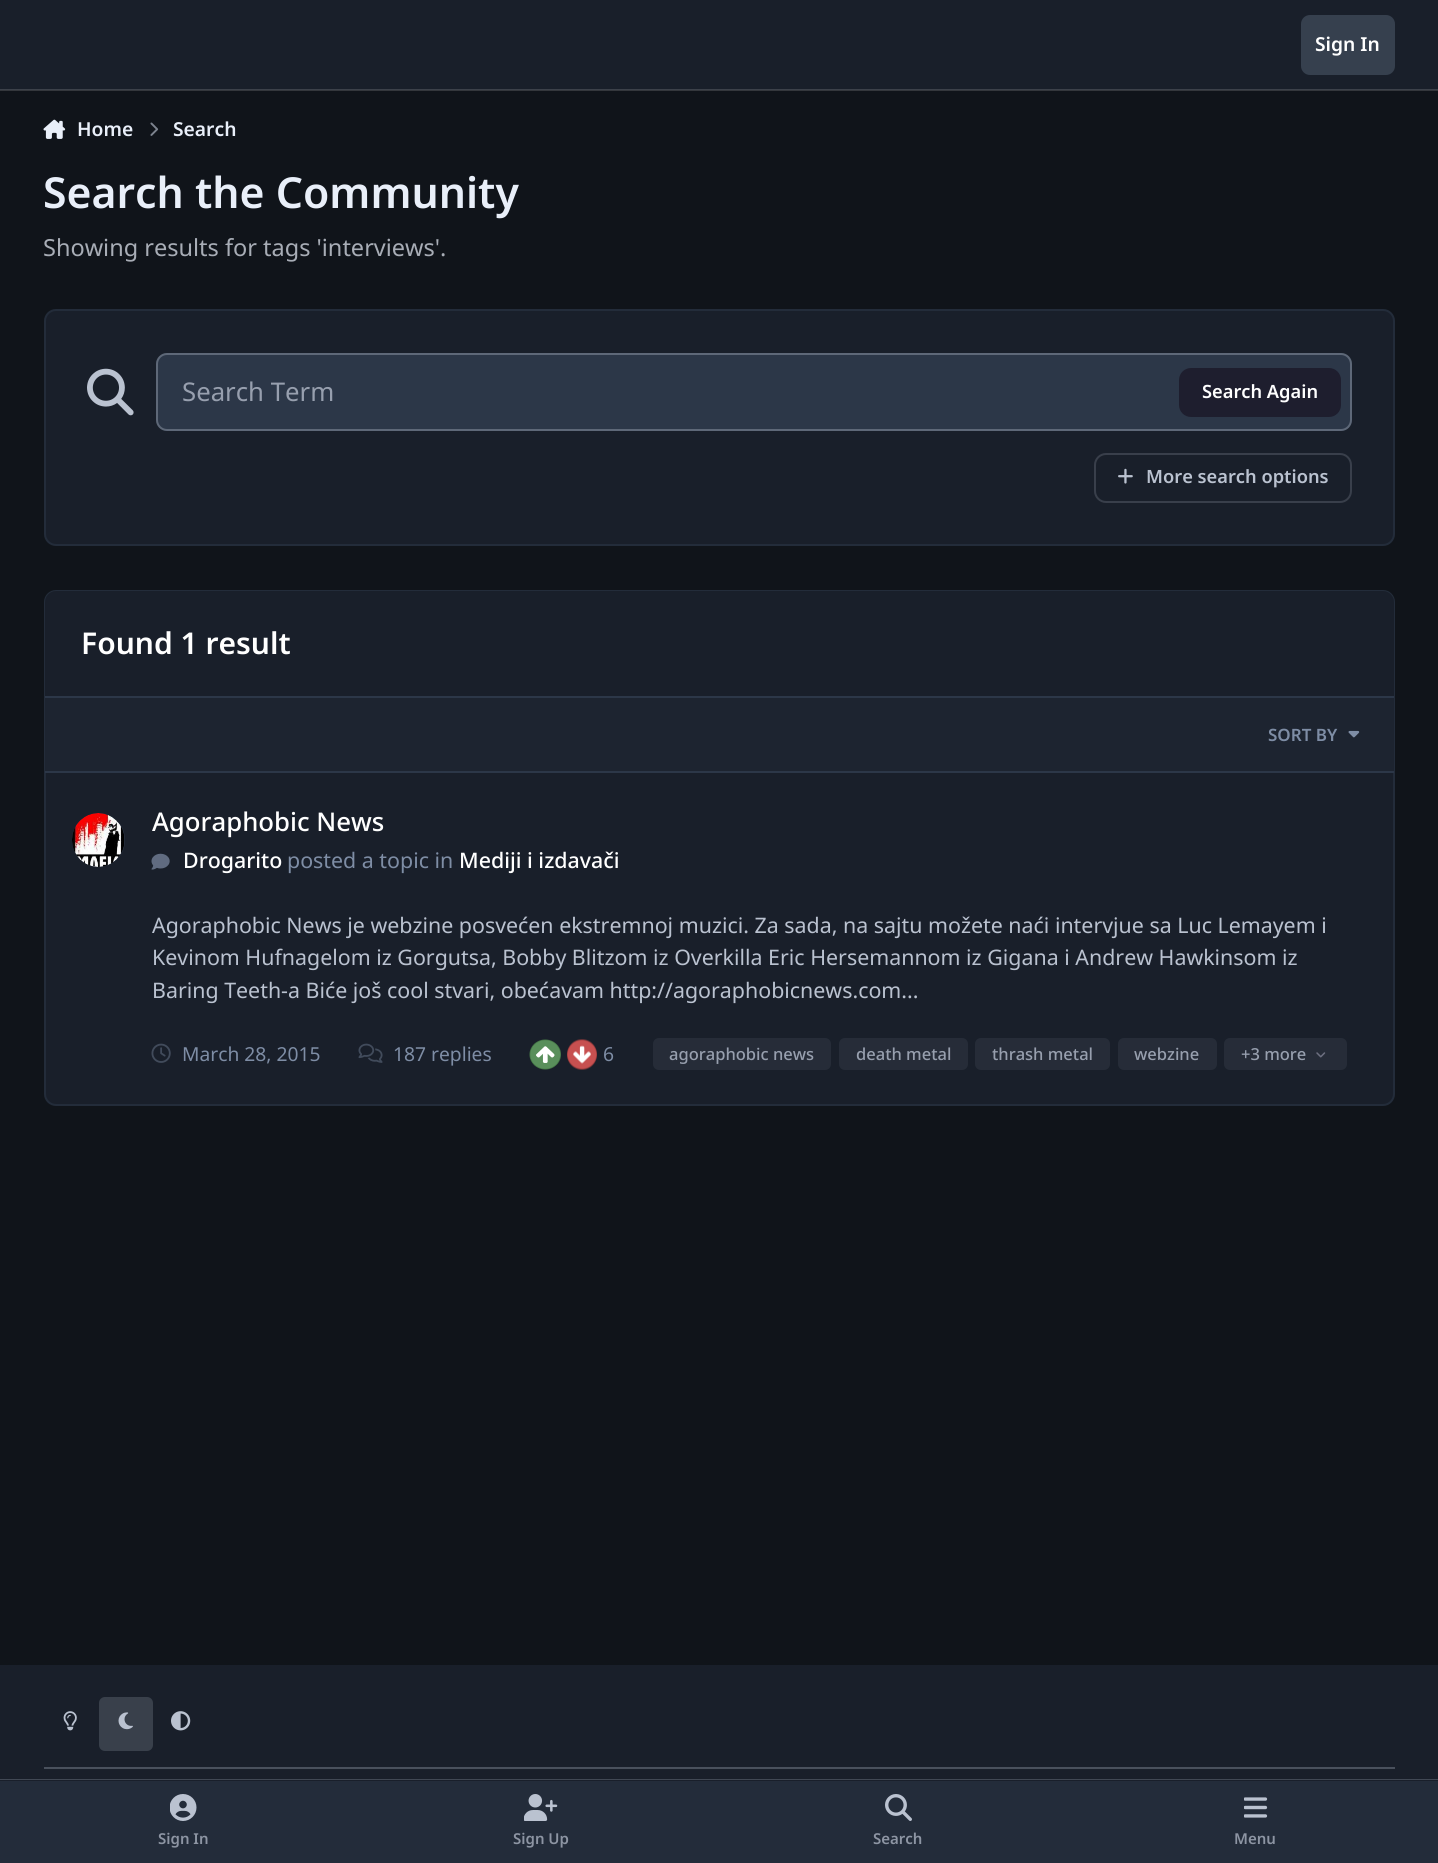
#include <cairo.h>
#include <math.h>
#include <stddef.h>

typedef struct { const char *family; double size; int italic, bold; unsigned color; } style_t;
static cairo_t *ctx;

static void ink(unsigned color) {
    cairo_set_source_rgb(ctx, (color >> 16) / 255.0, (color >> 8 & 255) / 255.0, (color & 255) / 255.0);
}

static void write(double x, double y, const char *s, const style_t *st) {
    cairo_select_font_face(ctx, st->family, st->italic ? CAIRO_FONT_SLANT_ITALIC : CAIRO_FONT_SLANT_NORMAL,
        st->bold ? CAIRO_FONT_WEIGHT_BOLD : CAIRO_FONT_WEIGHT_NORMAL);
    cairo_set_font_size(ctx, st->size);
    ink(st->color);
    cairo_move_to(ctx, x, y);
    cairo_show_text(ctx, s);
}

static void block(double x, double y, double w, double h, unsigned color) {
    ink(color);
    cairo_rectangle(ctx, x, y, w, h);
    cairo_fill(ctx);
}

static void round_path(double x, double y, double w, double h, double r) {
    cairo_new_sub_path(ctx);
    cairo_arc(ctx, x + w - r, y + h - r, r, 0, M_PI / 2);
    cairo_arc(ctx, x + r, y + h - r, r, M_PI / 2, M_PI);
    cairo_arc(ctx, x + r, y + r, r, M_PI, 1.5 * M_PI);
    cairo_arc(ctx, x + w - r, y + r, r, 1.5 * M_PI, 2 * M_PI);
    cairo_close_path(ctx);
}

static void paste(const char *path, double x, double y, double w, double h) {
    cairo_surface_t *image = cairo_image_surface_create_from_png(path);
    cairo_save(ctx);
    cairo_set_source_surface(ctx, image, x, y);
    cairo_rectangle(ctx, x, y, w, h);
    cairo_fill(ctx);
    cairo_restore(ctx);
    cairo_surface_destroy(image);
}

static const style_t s1 = {"Noto Sans SemiBold", 19.25, 0, 0, 0xffffff};
static const style_t s2 = {"Noto Sans SemiBold", 19.25, 0, 0, 0xe9eff9};
static const style_t s3 = {"Noto Sans SemiBold", 42.75, 0, 0, 0xe9eff9};
static const style_t s4 = {"Noto Sans", 23.5, 0, 0, 0xa8adb6};
static const style_t s5 = {"Noto Sans", 25.75, 0, 0, 0x979fae};
static const style_t s6 = {"Noto Sans SemiBold", 18.25, 0, 0, 0xffffff};
static const style_t s7 = {"Noto Sans SemiBold", 18.25, 0, 0, 0xbac2d0};
static const style_t s8 = {"Noto Sans SemiBold", 30, 0, 0, 0xffffff};
static const style_t s9 = {"Noto Sans SemiBold", 17, 0, 0, 0x7e8da5};
static const style_t s10 = {"Noto Sans Medium", 25.75, 0, 0, 0xffffff};
static const style_t s11 = {"Noto Sans Medium", 21.38, 0, 0, 0xffffff};
static const style_t s12 = {"Noto Sans", 21.38, 0, 0, 0x7e8da5};
static const style_t s13 = {"Noto Sans", 21.38, 0, 0, 0xbac2d0};
static const style_t s14 = {"Noto Sans", 19.25, 0, 0, 0x7e8da5};
static const style_t s15 = {"Noto Sans Medium", 16.5, 0, 0, 0x979fae};
static const style_t s16 = {"Noto Sans SemiBold", 15, 0, 0, 0x8d95a3};

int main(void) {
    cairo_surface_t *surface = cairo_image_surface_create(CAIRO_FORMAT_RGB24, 1438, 1863);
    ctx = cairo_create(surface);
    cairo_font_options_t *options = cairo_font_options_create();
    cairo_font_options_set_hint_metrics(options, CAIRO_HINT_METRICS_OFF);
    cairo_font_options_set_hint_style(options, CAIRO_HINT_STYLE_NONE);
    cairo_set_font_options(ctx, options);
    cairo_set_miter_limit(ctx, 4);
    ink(0x10141a);
    cairo_paint(ctx);
    block(0, 90, 1438, 1, 0x34373c);
    block(0, 0, 1438, 89, 0x191f2a);
    block(0, 89, 1438, 1, 0x3c414a);
    ink(0x36404e);
    round_path(1301, 15, 94, 60, 9);
    cairo_fill(ctx);
    write(1315, 51, "Sign In", &s1);
    paste("pic1.png", 43, 119, 23, 20);
    write(77, 136, "Home", &s2);
    paste("pic2.png", 150, 122, 9, 14);
    write(173, 136, "Search", &s2);
    write(43, 208, "Search the Community", &s3);
    write(43, 256, "Showing results for tags 'interviews'.", &s4);
    ink(0x191f2a);
    round_path(45, 310, 1349, 235, 11);
    cairo_fill_preserve(ctx);
    ink(0x232c3a);
    cairo_stroke(ctx);
    paste("pic3.png", 87, 368, 47, 48);
    ink(0x2c3748);
    round_path(156, 353, 1196, 78, 11);
    cairo_fill(ctx);
    round_path(157, 354, 1194, 76, 10);
    cairo_set_source_rgba(ctx, 0.729, 0.761, 0.816, 0.35);
    cairo_stroke(ctx);
    write(182, 401, "Search Term", &s5);
    ink(0x1e1e2e);
    round_path(1179, 368, 162, 49, 12);
    cairo_fill(ctx);
    write(1202, 398, "Search Again", &s6);
    round_path(1095, 454, 256, 48, 11);
    ink(0x393f4b);
    cairo_stroke(ctx);
    paste("pic4.png", 1118, 468, 15, 16);
    write(1146, 483, "More search options", &s7);
    ink(0x191f2a);
    round_path(45, 591, 1349, 514, 11);
    cairo_fill_preserve(ctx);
    ink(0x232c3a);
    cairo_stroke(ctx);
    ink(0x191f2a);
    cairo_new_path(ctx);
    cairo_move_to(ctx, 56, 591);
    cairo_line_to(ctx, 1383, 591);
    cairo_curve_to(ctx, 1389, 591, 1394, 596, 1394, 602);
    cairo_line_to(ctx, 1394, 698);
    cairo_line_to(ctx, 45, 698);
    cairo_line_to(ctx, 45, 602);
    cairo_curve_to(ctx, 45, 596, 50, 591, 56, 591);
    cairo_close_path(ctx);
    cairo_fill(ctx);
    block(45, 696, 1349, 2, 0x2c3748);
    write(81, 654, "Found 1 result", &s8);
    block(45, 698, 1349, 73, 0x1d2430);
    block(45, 771, 1349, 2, 0x2c3748);
    write(1268, 741, "SORT BY", &s9);
    paste("pic5.png", 1348, 730, 12, 8);
    ink(0x252e3d);
    round_path(72, 813, 53, 54, 26.5);
    cairo_fill(ctx);
    paste("pic6.png", 72, 813, 53, 54);
    write(152, 831, "Agoraphobic News", &s10);
    paste("pic7.png", 151, 853, 19, 17);
    write(183, 868, "Drogarito", &s11);
    write(287, 868, "posted a topic in", &s12);
    write(459, 868, "Mediji i izdavači", &s11);
    write(152, 933, "Agoraphobic News je webzine posvećen ekstremnoj muzici. Za sada, na sajtu možete naći intervjue sa Luc Lemayem i", &s13);
    write(152, 965, "Kevinom Hufnagelom iz Gorgutsa, Bobby Blitzom iz Overkilla Eric Hersemannom iz Gigana i Andrew Hawkinsom iz", &s13);
    write(152, 998, "Baring Teeth-a Biće još cool stvari, obećavam http://agoraphobicnews.com...", &s13);
    paste("pic8.png", 151, 1043, 20, 20);
    write(182, 1061, "March 28, 2015", &s14);
    paste("pic9.png", 358, 1043, 25, 20);
    write(393, 1061, "187 replies", &s14);
    paste("pic10.png", 529, 1039, 32, 31);
    paste("pic11.png", 567, 1039, 30, 31);
    write(603, 1061, "6", &s14);
    ink(0x262c38);
    round_path(653, 1038, 178, 32, 6);
    cairo_fill(ctx);
    write(669, 1060, "agoraphobic news", &s15);
    ink(0x262c38);
    round_path(839, 1038, 129, 32, 6);
    cairo_fill(ctx);
    write(856, 1060, "death metal", &s15);
    ink(0x262c38);
    round_path(975, 1038, 135, 32, 6);
    cairo_fill(ctx);
    write(992, 1060, "thrash metal", &s15);
    ink(0x262c38);
    round_path(1118, 1038, 99, 32, 6);
    cairo_fill(ctx);
    write(1134, 1060, "webzine", &s15);
    ink(0x262c38);
    round_path(1224, 1038, 123, 32, 6);
    cairo_fill(ctx);
    write(1241, 1060, "+3 more", &s15);
    paste("pic12.png", 1316, 1052, 10, 6);
    block(0, 1665, 1438, 116, 0x191f2a);
    paste("pic13.png", 63, 1711, 14, 20);
    ink(0x39404b);
    round_path(99, 1697, 54, 54, 6);
    cairo_fill(ctx);
    paste("pic14.png", 118, 1712, 15, 18);
    paste("pic15.png", 171, 1711, 20, 20);
    block(44, 1767, 1351, 2, 0x49505c);
    ink(0x414854);
    cairo_new_path(ctx);
    cairo_move_to(ctx, 0, 1779);
    cairo_line_to(ctx, 0, 1780);
    cairo_line_to(ctx, 1438, 1780);
    cairo_line_to(ctx, 1438, 1862);
    cairo_line_to(ctx, 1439, 1862);
    cairo_line_to(ctx, 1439, 1779);
    cairo_close_path(ctx);
    cairo_fill(ctx);
    block(0, 1781, 1438, 82, 0x232c3a);
    paste("pic16.png", 170, 1794, 27, 27);
    write(158, 1844, "Sign In", &s16);
    paste("pic17.png", 524, 1794, 34, 27);
    write(513, 1844, "Sign Up", &s16);
    paste("pic18.png", 885, 1794, 27, 27);
    write(873, 1844, "Search", &s16);
    paste("pic19.png", 1244, 1797, 24, 21);
    write(1234, 1844, "Menu", &s16);
    cairo_surface_write_to_png(surface, "screenshot.png");
    cairo_font_options_destroy(options);
    cairo_destroy(ctx);
    cairo_surface_destroy(surface);
    return 0;
}
